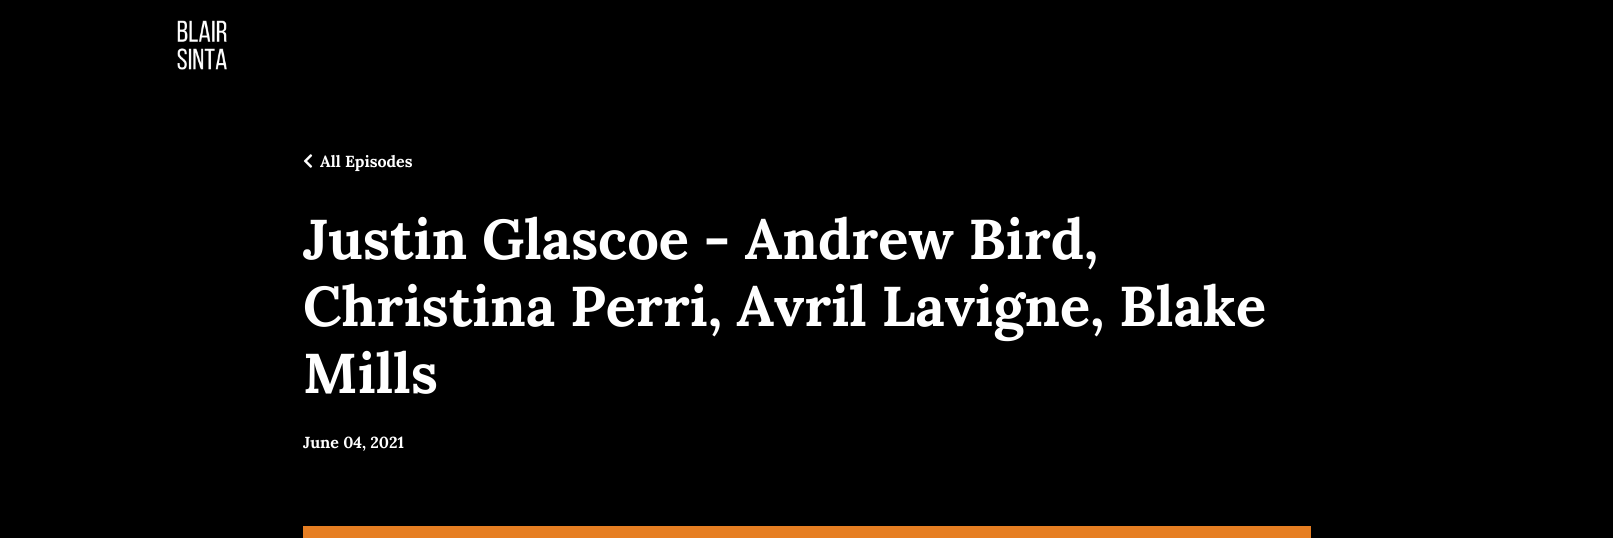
#include <cairo.h>
#include <math.h>
#include <stddef.h>

typedef struct { const char *family; double size; int italic, bold; unsigned color; } style_t;
static cairo_t *ctx;

static void ink(unsigned color) {
    cairo_set_source_rgb(ctx, (color >> 16) / 255.0, (color >> 8 & 255) / 255.0, (color & 255) / 255.0);
}

static void write(double x, double y, const char *s, const style_t *st) {
    cairo_select_font_face(ctx, st->family, st->italic ? CAIRO_FONT_SLANT_ITALIC : CAIRO_FONT_SLANT_NORMAL,
        st->bold ? CAIRO_FONT_WEIGHT_BOLD : CAIRO_FONT_WEIGHT_NORMAL);
    cairo_set_font_size(ctx, st->size);
    ink(st->color);
    cairo_move_to(ctx, x, y);
    cairo_show_text(ctx, s);
}

static void block(double x, double y, double w, double h, unsigned color) {
    ink(color);
    cairo_rectangle(ctx, x, y, w, h);
    cairo_fill(ctx);
}

static void paste(const char *path, double x, double y, double w, double h) {
    cairo_surface_t *image = cairo_image_surface_create_from_png(path);
    cairo_save(ctx);
    cairo_set_source_surface(ctx, image, x, y);
    cairo_rectangle(ctx, x, y, w, h);
    cairo_fill(ctx);
    cairo_restore(ctx);
    cairo_surface_destroy(image);
}

static const style_t s1 = {"Lora", 16, 0, 1, 0xffffff};
static const style_t s2 = {"Lora", 56, 0, 1, 0xffffff};

int main(void) {
    cairo_surface_t *surface = cairo_image_surface_create(CAIRO_FORMAT_RGB24, 1613, 538);
    ctx = cairo_create(surface);
    cairo_font_options_t *options = cairo_font_options_create();
    cairo_font_options_set_hint_metrics(options, CAIRO_HINT_METRICS_OFF);
    cairo_font_options_set_hint_style(options, CAIRO_HINT_STYLE_NONE);
    cairo_set_font_options(ctx, options);
    cairo_set_miter_limit(ctx, 4);
    ink(0x000000);
    cairo_paint(ctx);
    paste("pic1.png", 177, 20, 50, 50);
    paste("pic2.png", 303, 154, 10, 14);
    write(320, 167, "All Episodes", &s1);
    write(303, 259, "Justin Glascoe - Andrew Bird,", &s2);
    write(303, 326, "Christina Perri, Avril Lavigne, Blake", &s2);
    write(303, 393, "Mills", &s2);
    write(303, 448, "June 04, 2021", &s1);
    block(303, 526, 1008, 12, 0xe67e22);
    cairo_surface_write_to_png(surface, "screenshot.png");
    cairo_font_options_destroy(options);
    cairo_destroy(ctx);
    cairo_surface_destroy(surface);
    return 0;
}
